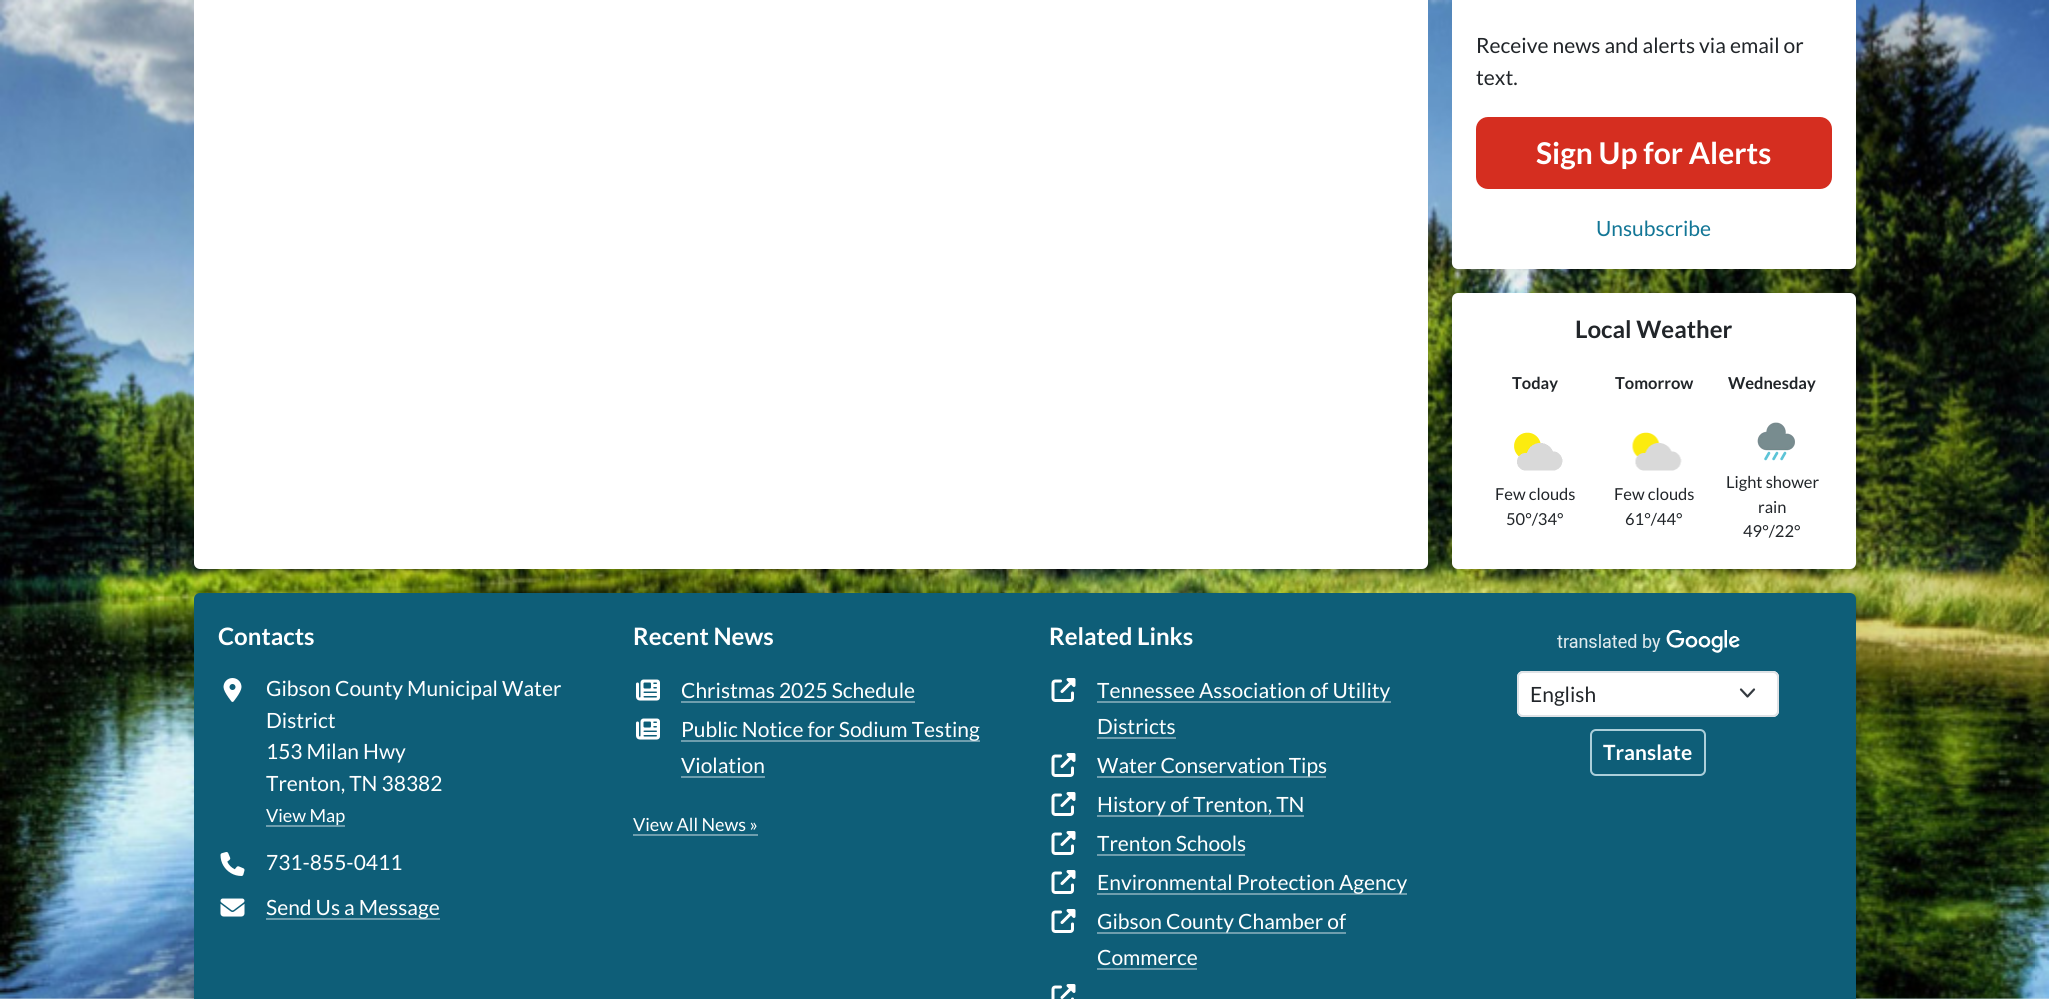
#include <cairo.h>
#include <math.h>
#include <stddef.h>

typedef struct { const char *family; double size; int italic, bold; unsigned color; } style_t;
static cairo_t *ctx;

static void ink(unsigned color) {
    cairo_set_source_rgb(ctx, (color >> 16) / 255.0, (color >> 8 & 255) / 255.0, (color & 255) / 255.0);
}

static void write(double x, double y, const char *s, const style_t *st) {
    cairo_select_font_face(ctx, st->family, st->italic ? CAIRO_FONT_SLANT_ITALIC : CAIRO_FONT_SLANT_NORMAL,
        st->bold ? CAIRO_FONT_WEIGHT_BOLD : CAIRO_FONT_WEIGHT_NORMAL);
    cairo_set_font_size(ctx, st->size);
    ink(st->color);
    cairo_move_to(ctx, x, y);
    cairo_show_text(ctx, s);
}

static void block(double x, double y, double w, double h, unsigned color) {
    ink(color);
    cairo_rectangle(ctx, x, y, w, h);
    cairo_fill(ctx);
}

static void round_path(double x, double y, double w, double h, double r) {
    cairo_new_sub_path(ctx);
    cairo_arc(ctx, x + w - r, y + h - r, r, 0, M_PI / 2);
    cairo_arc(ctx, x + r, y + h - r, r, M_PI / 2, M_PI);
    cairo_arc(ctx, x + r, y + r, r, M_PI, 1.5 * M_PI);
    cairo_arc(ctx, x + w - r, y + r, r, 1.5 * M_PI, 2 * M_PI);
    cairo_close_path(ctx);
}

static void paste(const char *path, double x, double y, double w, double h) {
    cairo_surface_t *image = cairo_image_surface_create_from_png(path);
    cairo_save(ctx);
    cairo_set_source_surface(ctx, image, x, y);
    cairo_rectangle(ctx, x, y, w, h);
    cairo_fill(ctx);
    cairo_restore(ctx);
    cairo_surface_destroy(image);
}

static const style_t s1 = {"Lato", 21, 0, 0, 0x212529};
static const style_t s2 = {"Lato", 30, 0, 1, 0xffffff};
static const style_t s3 = {"Lato", 21, 0, 0, 0x127696};
static const style_t s4 = {"Lato", 24, 0, 1, 0x212529};
static const style_t s5 = {"Lato", 16.5, 0, 1, 0x212529};
static const style_t s6 = {"Lato", 16.5, 0, 0, 0x212529};
static const style_t s7 = {"Lato", 24, 0, 1, 0xffffff};
static const style_t s8 = {"Lato", 21, 0, 0, 0xffffff};
static const style_t s9 = {"Lato", 18, 0, 0, 0xffffff};
static const style_t s10 = {"Lato", 21, 0, 1, 0xffffff};

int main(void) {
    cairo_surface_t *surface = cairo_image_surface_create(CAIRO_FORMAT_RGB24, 2049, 999);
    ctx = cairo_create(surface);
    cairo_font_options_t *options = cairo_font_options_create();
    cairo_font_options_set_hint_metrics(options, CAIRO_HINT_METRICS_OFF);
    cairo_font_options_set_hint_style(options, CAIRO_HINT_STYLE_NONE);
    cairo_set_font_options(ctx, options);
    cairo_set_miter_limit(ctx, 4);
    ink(0xd0e4ea);
    cairo_paint(ctx);
    paste("pic1.png", 0, 0, 2049, 999);
    ink(0xffffff);
    round_path(194, -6, 1234, 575, 6);
    cairo_fill(ctx);
    round_path(1452, -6, 404, 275, 6);
    cairo_fill(ctx);
    write(1476, 53, "Receive news and alerts via email or", &s1);
    write(1476, 85, "text.", &s1);
    ink(0xd52e20);
    round_path(1477, 118, 354, 70, 11);
    cairo_fill_preserve(ctx);
    cairo_stroke(ctx);
    write(1536, 164, "Sign Up for Alerts", &s2);
    write(1596, 236, "Unsubscribe", &s3);
    ink(0xffffff);
    round_path(1452, 293, 404, 276, 6);
    cairo_fill(ctx);
    write(1575, 338, "Local Weather", &s4);
    write(1512, 389, "Today", &s5);
    write(1615, 389, "Tomorrow", &s5);
    write(1728, 389, "Wednesday", &s5);
    paste("pic2.png", 1514, 432, 49, 39);
    write(1495, 500, "Few clouds", &s6);
    write(1506, 525, "50°/34°", &s6);
    paste("pic3.png", 1632, 432, 50, 39);
    write(1614, 500, "Few clouds", &s6);
    write(1625, 525, "61°/44°", &s6);
    paste("pic4.png", 1757, 422, 38, 39);
    write(1726, 488, "Light shower", &s6);
    write(1758, 513, "rain", &s6);
    write(1743, 537, "49°/22°", &s6);
    ink(0x0e5e78);
    round_path(194, 593, 1662, 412, 6);
    cairo_fill(ctx);
    write(218, 645, "Contacts", &s7);
    paste("pic5.png", 223, 678, 19, 24);
    write(266, 696, "Gibson County Municipal Water", &s8);
    write(266, 728, "District", &s8);
    write(266, 759, "153 Milan Hwy", &s8);
    write(266, 791, "Trenton, TN 38382", &s8);
    block(266, 825, 79, 2, 0x6e9eae);
    write(266, 822, "View Map", &s9);
    paste("pic6.png", 220, 852, 25, 24);
    write(266, 870, "731-855-0411", &s8);
    paste("pic7.png", 220, 898, 25, 19);
    block(266, 918, 174, 2, 0x6e9eae);
    write(266, 915, "Send Us a Message", &s8);
    write(633, 645, "Recent News", &s7);
    paste("pic8.png", 636, 679, 24, 22);
    write(681, 698, "Christmas 2025 Schedule", &s8);
    block(681, 701, 234, 2, 0x6e9eae);
    paste("pic8.png", 636, 718, 24, 22);
    block(681, 740, 299, 2, 0x6e9eae);
    write(681, 737, "Public Notice for Sodium Testing", &s8);
    write(681, 773, "Violation", &s8);
    block(681, 776, 84, 2, 0x6e9eae);
    write(633, 831, "View All News »", &s9);
    block(633, 834, 125, 2, 0x6e9eae);
    write(1049, 645, "Related Links", &s7);
    paste("pic9.png", 1051, 678, 25, 24);
    block(1097, 701, 294, 2, 0x6e9eae);
    write(1097, 698, "Tennessee Association of Utility", &s8);
    write(1097, 734, "Districts", &s8);
    block(1097, 737, 79, 2, 0x6e9eae);
    paste("pic9.png", 1051, 753, 25, 24);
    block(1097, 776, 229, 2, 0x6e9eae);
    write(1097, 773, "Water Conservation Tips", &s8);
    paste("pic9.png", 1051, 792, 25, 24);
    block(1097, 815, 207, 2, 0x6e9eae);
    write(1097, 812, "History of Trenton, TN", &s8);
    paste("pic9.png", 1051, 831, 25, 24);
    write(1097, 851, "Trenton Schools", &s8);
    block(1097, 854, 148, 2, 0x6e9eae);
    paste("pic9.png", 1051, 870, 25, 24);
    block(1097, 893, 310, 2, 0x6e9eae);
    write(1097, 890, "Environmental Protection Agency", &s8);
    paste("pic9.png", 1051, 909, 25, 24);
    block(1097, 932, 249, 2, 0x6e9eae);
    write(1097, 929, "Gibson County Chamber of", &s8);
    write(1097, 965, "Commerce", &s8);
    block(1097, 968, 100, 2, 0x6e9eae);
    paste("pic10.png", 1051, 984, 25, 15);
    paste("pic11.png", 1557, 630, 183, 23);
    ink(0xffffff);
    round_path(1517, 671, 262, 46, 6);
    cairo_fill(ctx);
    cairo_new_path(ctx);
    cairo_move_to(ctx, 1741, 689.5);
    cairo_line_to(ctx, 1747.5, 696.5);
    cairo_line_to(ctx, 1754, 689.5);
    ink(0x343a40);
    cairo_set_line_width(ctx, 2.2);
    cairo_set_line_cap(ctx, CAIRO_LINE_CAP_ROUND);
    cairo_set_line_join(ctx, CAIRO_LINE_JOIN_ROUND);
    cairo_stroke(ctx);
    round_path(1518, 672, 260, 44, 5);
    ink(0xdee2e6);
    cairo_set_line_width(ctx, 2);
    cairo_set_line_cap(ctx, CAIRO_LINE_CAP_BUTT);
    cairo_set_line_join(ctx, CAIRO_LINE_JOIN_MITER);
    cairo_stroke(ctx);
    write(1530, 702, "English", &s1);
    round_path(1591, 730, 114, 45, 5);
    ink(0xaccfda);
    cairo_stroke(ctx);
    write(1603, 760, "Translate", &s10);
    cairo_surface_write_to_png(surface, "screenshot.png");
    cairo_font_options_destroy(options);
    cairo_destroy(ctx);
    cairo_surface_destroy(surface);
    return 0;
}
